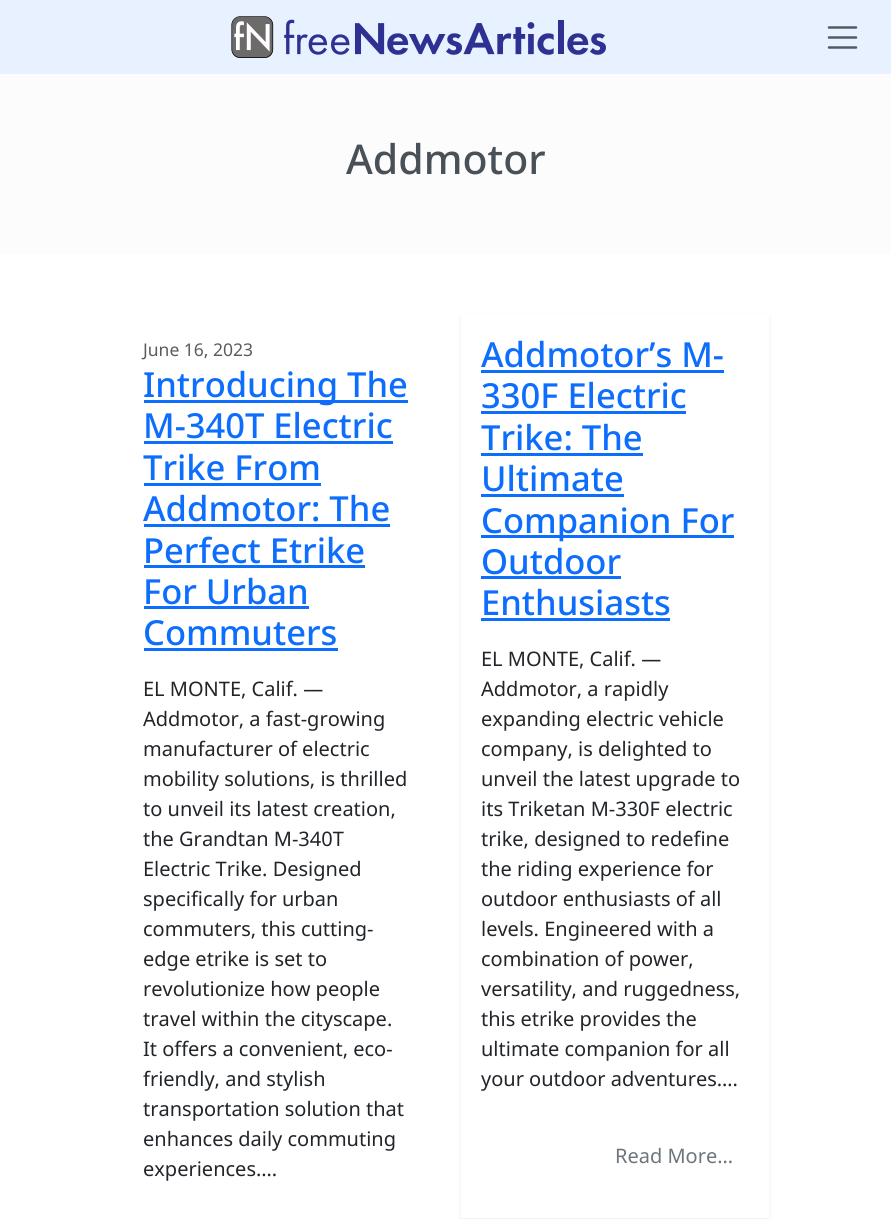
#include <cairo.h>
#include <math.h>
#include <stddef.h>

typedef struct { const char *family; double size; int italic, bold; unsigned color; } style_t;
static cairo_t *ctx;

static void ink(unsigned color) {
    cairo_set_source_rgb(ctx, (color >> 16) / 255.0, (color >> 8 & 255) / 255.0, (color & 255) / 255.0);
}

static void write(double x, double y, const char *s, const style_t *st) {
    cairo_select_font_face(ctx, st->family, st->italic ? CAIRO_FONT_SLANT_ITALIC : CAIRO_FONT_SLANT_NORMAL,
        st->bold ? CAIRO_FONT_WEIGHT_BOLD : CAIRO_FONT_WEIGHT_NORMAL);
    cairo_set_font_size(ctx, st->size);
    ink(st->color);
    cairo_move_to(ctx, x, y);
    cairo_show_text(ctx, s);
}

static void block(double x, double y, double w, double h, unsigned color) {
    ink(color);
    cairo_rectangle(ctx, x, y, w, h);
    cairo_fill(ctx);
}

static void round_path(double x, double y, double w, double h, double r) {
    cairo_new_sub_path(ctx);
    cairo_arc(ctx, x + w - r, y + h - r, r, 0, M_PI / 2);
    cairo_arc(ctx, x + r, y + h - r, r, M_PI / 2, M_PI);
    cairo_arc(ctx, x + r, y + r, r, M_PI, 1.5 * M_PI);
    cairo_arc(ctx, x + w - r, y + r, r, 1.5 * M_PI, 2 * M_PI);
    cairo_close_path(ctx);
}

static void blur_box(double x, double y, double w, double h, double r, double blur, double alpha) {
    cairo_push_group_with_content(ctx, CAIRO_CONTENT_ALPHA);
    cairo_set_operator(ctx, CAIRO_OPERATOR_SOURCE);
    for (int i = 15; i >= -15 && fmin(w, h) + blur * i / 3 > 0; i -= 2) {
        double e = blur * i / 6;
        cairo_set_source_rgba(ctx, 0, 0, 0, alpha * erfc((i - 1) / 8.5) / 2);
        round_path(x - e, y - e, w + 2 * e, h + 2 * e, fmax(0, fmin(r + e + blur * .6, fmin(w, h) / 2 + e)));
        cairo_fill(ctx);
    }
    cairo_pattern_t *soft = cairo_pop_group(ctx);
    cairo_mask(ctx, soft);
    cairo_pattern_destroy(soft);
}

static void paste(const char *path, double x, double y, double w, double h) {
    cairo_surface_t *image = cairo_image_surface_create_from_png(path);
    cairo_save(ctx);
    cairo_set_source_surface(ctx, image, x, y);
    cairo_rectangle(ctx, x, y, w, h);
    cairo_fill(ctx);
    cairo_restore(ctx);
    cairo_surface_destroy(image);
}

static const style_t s1 = {"Noto Sans Medium", 41, 0, 0, 0x495057};
static const style_t s2 = {"Noto Sans", 17.5, 0, 0, 0x595c5f};
static const style_t s3 = {"Noto Sans Medium", 34.5, 0, 0, 0x0d6efd};
static const style_t s4 = {"Noto Sans", 20, 0, 0, 0x212529};
static const style_t s5 = {"Noto Sans", 20, 0, 0, 0x6c757d};

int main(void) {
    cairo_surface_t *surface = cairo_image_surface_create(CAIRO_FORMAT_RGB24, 891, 1219);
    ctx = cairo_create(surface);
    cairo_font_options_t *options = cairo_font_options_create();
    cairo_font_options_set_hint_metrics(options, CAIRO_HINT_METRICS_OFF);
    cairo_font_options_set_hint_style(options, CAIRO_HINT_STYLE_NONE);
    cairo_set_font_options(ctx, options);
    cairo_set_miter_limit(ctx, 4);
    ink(0xffffff);
    cairo_paint(ctx);
    block(0, 0, 891, 74, 0xe7f1ff);
    paste("pic1.png", 231, 16, 375, 42);
    cairo_new_path(ctx);
    cairo_move_to(ctx, 829, 27.5);
    cairo_line_to(ctx, 856, 27.5);
    cairo_move_to(ctx, 829, 37.5);
    cairo_line_to(ctx, 856, 37.5);
    cairo_move_to(ctx, 829, 47.5);
    cairo_line_to(ctx, 856, 47.5);
    ink(0x53585f);
    cairo_set_line_width(ctx, 2.5);
    cairo_set_line_cap(ctx, CAIRO_LINE_CAP_ROUND);
    cairo_stroke(ctx);
    block(0, 74, 891, 180, 0xfcfcfd);
    write(346, 174, "Addmotor", &s1);
    write(143, 356, "June 16, 2023", &s2);
    block(144, 400, 264, 3, 0x0d6efd);
    write(143, 397, "Introducing The", &s3);
    write(143, 438, "M-340T Electric", &s3);
    block(144, 441, 249, 3, 0x0d6efd);
    write(143, 480, "Trike From", &s3);
    block(144, 483, 177, 3, 0x0d6efd);
    write(143, 521, "Addmotor: The", &s3);
    block(144, 524, 246, 3, 0x0d6efd);
    write(143, 563, "Perfect Etrike", &s3);
    block(144, 565, 221, 3, 0x0d6efd);
    write(143, 604, "For Urban", &s3);
    block(144, 606, 165, 3, 0x0d6efd);
    write(143, 645, "Commuters", &s3);
    block(144, 648, 194, 3, 0x0d6efd);
    write(143, 696, "EL MONTE, Calif. —", &s4);
    write(143, 726, "Addmotor, a fast-growing", &s4);
    write(143, 756, "manufacturer of electric", &s4);
    write(143, 786, "mobility solutions, is thrilled", &s4);
    write(143, 816, "to unveil its latest creation,", &s4);
    write(143, 846, "the Grandtan M-340T", &s4);
    write(143, 876, "Electric Trike. Designed", &s4);
    write(143, 906, "specifically for urban", &s4);
    write(143, 936, "commuters, this cutting-", &s4);
    write(143, 966, "edge etrike is set to", &s4);
    write(143, 996, "revolutionize how people", &s4);
    write(143, 1026, "travel within the cityscape.", &s4);
    write(143, 1056, "It offers a convenient, eco-", &s4);
    write(143, 1086, "friendly, and stylish", &s4);
    write(143, 1116, "transportation solution that", &s4);
    write(143, 1146, "enhances daily commuting", &s4);
    write(143, 1176, "experiences….", &s4);
    ink(0x000000);
    blur_box(461, 316, 308, 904, 0, 2.5, 0.07);
    block(461, 314, 308, 904, 0xffffff);
    write(481, 367, "Addmotor’s M-", &s3);
    block(481, 370, 243, 3, 0x0d6efd);
    write(481, 408, "330F Electric", &s3);
    block(481, 411, 205, 3, 0x0d6efd);
    write(481, 450, "Trike: The", &s3);
    block(481, 453, 162, 3, 0x0d6efd);
    write(481, 491, "Ultimate", &s3);
    block(481, 494, 143, 3, 0x0d6efd);
    block(481, 535, 253, 3, 0x0d6efd);
    write(481, 533, "Companion For", &s3);
    write(481, 574, "Outdoor", &s3);
    block(481, 576, 140, 3, 0x0d6efd);
    write(481, 615, "Enthusiasts", &s3);
    block(481, 618, 189, 3, 0x0d6efd);
    write(481, 666, "EL MONTE, Calif. —", &s4);
    write(481, 696, "Addmotor, a rapidly", &s4);
    write(481, 726, "expanding electric vehicle", &s4);
    write(481, 756, "company, is delighted to", &s4);
    write(481, 786, "unveil the latest upgrade to", &s4);
    write(481, 816, "its Triketan M-330F electric", &s4);
    write(481, 846, "trike, designed to redefine", &s4);
    write(481, 876, "the riding experience for", &s4);
    write(481, 906, "outdoor enthusiasts of all", &s4);
    write(481, 936, "levels. Engineered with a", &s4);
    write(481, 966, "combination of power,", &s4);
    write(481, 996, "versatility, and ruggedness,", &s4);
    write(481, 1026, "this etrike provides the", &s4);
    write(481, 1056, "ultimate companion for all", &s4);
    write(481, 1086, "your outdoor adventures….", &s4);
    write(615, 1163, "Read More…", &s5);
    cairo_surface_write_to_png(surface, "screenshot.png");
    cairo_font_options_destroy(options);
    cairo_destroy(ctx);
    cairo_surface_destroy(surface);
    return 0;
}
